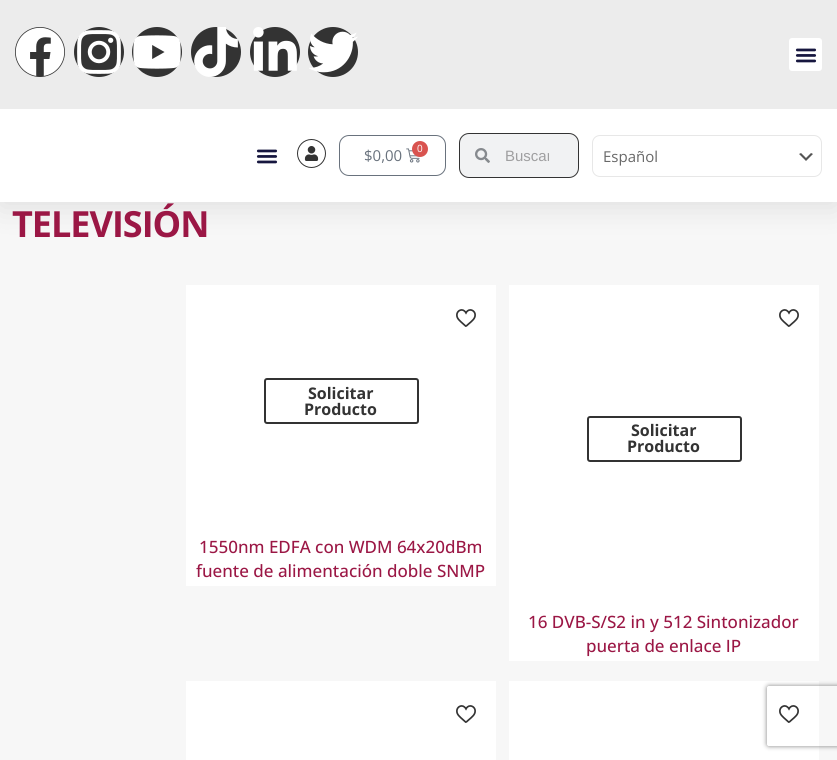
#include <cairo.h>
#include <math.h>
#include <stddef.h>

typedef struct { const char *family; double size; int italic, bold; unsigned color; } style_t;
static cairo_t *ctx;

static void ink(unsigned color) {
    cairo_set_source_rgb(ctx, (color >> 16) / 255.0, (color >> 8 & 255) / 255.0, (color & 255) / 255.0);
}

static void write(double x, double y, const char *s, const style_t *st) {
    cairo_select_font_face(ctx, st->family, st->italic ? CAIRO_FONT_SLANT_ITALIC : CAIRO_FONT_SLANT_NORMAL,
        st->bold ? CAIRO_FONT_WEIGHT_BOLD : CAIRO_FONT_WEIGHT_NORMAL);
    cairo_set_font_size(ctx, st->size);
    ink(st->color);
    cairo_move_to(ctx, x, y);
    cairo_show_text(ctx, s);
}

static void write_spaced(double x, double y, const char *s, double letter, double word) {
    cairo_move_to(ctx, x, y);
    while (*s) {
        char ch[5] = {0};
        int n = 0;
        do ch[n++] = *s++; while ((*s & 0xC0) == 0x80);
        cairo_show_text(ctx, ch);
        cairo_rel_move_to(ctx, letter + word * (*ch == ' '), 0);
    }
}

static void block(double x, double y, double w, double h, unsigned color) {
    ink(color);
    cairo_rectangle(ctx, x, y, w, h);
    cairo_fill(ctx);
}

static void round_path(double x, double y, double w, double h, double r) {
    cairo_new_sub_path(ctx);
    cairo_arc(ctx, x + w - r, y + h - r, r, 0, M_PI / 2);
    cairo_arc(ctx, x + r, y + h - r, r, M_PI / 2, M_PI);
    cairo_arc(ctx, x + r, y + r, r, M_PI, 1.5 * M_PI);
    cairo_arc(ctx, x + w - r, y + r, r, 1.5 * M_PI, 2 * M_PI);
    cairo_close_path(ctx);
}

static void blur_box(double x, double y, double w, double h, double r, double blur, double alpha) {
    cairo_push_group_with_content(ctx, CAIRO_CONTENT_ALPHA);
    cairo_set_operator(ctx, CAIRO_OPERATOR_SOURCE);
    for (int i = 15; i >= -15 && fmin(w, h) + blur * i / 3 > 0; i -= 2) {
        double e = blur * i / 6;
        cairo_set_source_rgba(ctx, 0, 0, 0, alpha * erfc((i - 1) / 8.5) / 2);
        round_path(x - e, y - e, w + 2 * e, h + 2 * e, fmax(0, fmin(r + e + blur * .6, fmin(w, h) / 2 + e)));
        cairo_fill(ctx);
    }
    cairo_pattern_t *soft = cairo_pop_group(ctx);
    cairo_mask(ctx, soft);
    cairo_pattern_destroy(soft);
}

static void paste(const char *path, double x, double y, double w, double h) {
    cairo_surface_t *image = cairo_image_surface_create_from_png(path);
    cairo_save(ctx);
    cairo_set_source_surface(ctx, image, x, y);
    cairo_rectangle(ctx, x, y, w, h);
    cairo_fill(ctx);
    cairo_restore(ctx);
    cairo_surface_destroy(image);
}

static const style_t s1 = {"Open Sans", 15, 0, 0, 0x69727d};
static const style_t s2 = {"Open Sans", 10, 0, 0, 0xffffff};
static const style_t s3 = {"Liberation Sans", 15, 0, 0, 0x9f9fa0};
static const style_t s4 = {"Open Sans", 15, 0, 0, 0x686868};
static const style_t s5 = {"Open Sans", 16, 0, 1, 0x333333};
static const style_t s6 = {"Open Sans Medium", 17, 0, 0, 0x9b1745};

int main(void) {
    cairo_surface_t *surface = cairo_image_surface_create(CAIRO_FORMAT_RGB24, 837, 760);
    ctx = cairo_create(surface);
    cairo_font_options_t *options = cairo_font_options_create();
    cairo_font_options_set_hint_metrics(options, CAIRO_HINT_METRICS_OFF);
    cairo_font_options_set_hint_style(options, CAIRO_HINT_STYLE_NONE);
    cairo_set_font_options(ctx, options);
    cairo_set_miter_limit(ctx, 4);
    ink(0xf7f7f7);
    cairo_paint(ctx);
    ink(0x000000);
    blur_box(0, 5, 837, 202, 0, 15, 0.1);
    block(0, 0, 837, 109, 0xececec);
    ink(0x333333);
    cairo_arc(ctx, 40, 52, 25, 0, 2 * M_PI);
    cairo_fill(ctx);
    paste("pic1.png", 15, 27, 50, 49);
    cairo_arc(ctx, 99, 52, 25, 0, 2 * M_PI);
    cairo_fill(ctx);
    paste("pic2.png", 77, 30, 44, 44);
    cairo_arc(ctx, 157, 52, 25, 0, 2 * M_PI);
    cairo_fill(ctx);
    paste("pic3.png", 133, 35, 48, 34);
    cairo_arc(ctx, 216, 52, 25, 0, 2 * M_PI);
    cairo_fill(ctx);
    paste("pic4.png", 194, 27, 44, 50);
    cairo_arc(ctx, 275, 52, 25, 0, 2 * M_PI);
    cairo_fill(ctx);
    paste("pic5.png", 253, 27, 44, 44);
    cairo_arc(ctx, 333, 52, 25, 0, 2 * M_PI);
    cairo_fill(ctx);
    paste("pic6.png", 309, 31, 49, 42);
    ink(0xffffff);
    round_path(789, 38, 33, 33, 3);
    cairo_fill(ctx);
    paste("pic7.png", 795, 48, 22, 15);
    block(0, 109, 837, 93, 0xffffff);
    paste("pic7.png", 256, 149, 22, 15);
    cairo_arc(ctx, 311.5, 153.5, 14, 0, 2 * M_PI);
    ink(0x333333);
    cairo_set_line_width(ctx, 1);
    cairo_stroke(ctx);
    paste("pic8.png", 304, 146, 15, 15);
    round_path(339.5, 135.5, 106, 40, 9.5);
    ink(0x69727d);
    cairo_stroke(ctx);
    write(364, 161, "$0,00", &s1);
    paste("pic9.png", 406, 148, 14, 15);
    ink(0xd9534f);
    cairo_arc(ctx, 420, 149, 8, 0, 2 * M_PI);
    cairo_fill(ctx);
    write(417, 152, "0", &s2);
    ink(0xf1f2f3);
    round_path(459.5, 133.5, 119, 44, 9.5);
    cairo_fill_preserve(ctx);
    ink(0x333333);
    cairo_stroke(ctx);
    paste("pic10.png", 475, 148, 15, 15);
    cairo_save(ctx);
    cairo_rectangle(ctx, 505, 147, 44, 17);
    cairo_clip(ctx);
    write(505, 161, "Buscar", &s3);
    cairo_restore(ctx);
    paste("pic11.png", 799, 153, 14, 8);
    round_path(592.5, 135.5, 229, 41, 7.5);
    ink(0xe7e7e7);
    cairo_stroke(ctx);
    write(603, 162, "Español", &s4);
    cairo_select_font_face(ctx, "Open Sans", CAIRO_FONT_SLANT_NORMAL, CAIRO_FONT_WEIGHT_BOLD);
    cairo_set_font_size(ctx, 36);
    ink(0x9b1745);
    write_spaced(12, 237, "TELEVISIÓN", -1, 0);
    block(186, 285, 310, 301, 0xffffff);
    paste("pic12.png", 456, 309, 20, 18);
    round_path(265, 379, 153, 44, 2);
    ink(0x333333);
    cairo_set_line_width(ctx, 2);
    cairo_stroke(ctx);
    write(308, 399, "Solicitar", &s5);
    write(304, 415, "Producto", &s5);
    write(199, 553, "1550nm EDFA con WDM 64x20dBm", &s6);
    write(196, 577, "fuente de alimentación doble SNMP", &s6);
    block(509, 285, 310, 376, 0xffffff);
    paste("pic12.png", 779, 309, 20, 18);
    round_path(588, 417, 153, 44, 2);
    ink(0x333333);
    cairo_stroke(ctx);
    write(631, 436, "Solicitar", &s5);
    write(627, 452, "Producto", &s5);
    write(528, 628, "16 DVB-S/S2 in y 512 Sintonizador", &s6);
    write(586, 652, "puerta de enlace IP", &s6);
    block(186, 681, 310, 79, 0xffffff);
    paste("pic12.png", 456, 705, 20, 18);
    block(509, 681, 310, 79, 0xffffff);
    paste("pic12.png", 779, 705, 20, 18);
    cairo_save(ctx);
    cairo_set_fill_rule(ctx, CAIRO_FILL_RULE_EVEN_ODD);
    cairo_new_path(ctx);
    cairo_move_to(ctx, 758, 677);
    cairo_line_to(ctx, 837, 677);
    cairo_line_to(ctx, 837, 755);
    cairo_line_to(ctx, 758, 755);
    cairo_close_path(ctx);
    cairo_move_to(ctx, 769, 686);
    cairo_line_to(ctx, 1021, 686);
    cairo_curve_to(ctx, 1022, 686, 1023, 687, 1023, 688);
    cairo_line_to(ctx, 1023, 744);
    cairo_curve_to(ctx, 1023, 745, 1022, 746, 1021, 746);
    cairo_line_to(ctx, 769, 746);
    cairo_curve_to(ctx, 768, 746, 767, 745, 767, 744);
    cairo_line_to(ctx, 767, 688);
    cairo_curve_to(ctx, 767, 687, 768, 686, 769, 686);
    cairo_close_path(ctx);
    cairo_clip(ctx);
    ink(0x808080);
    blur_box(767, 686, 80, 60, 2, 2.5, 1);
    cairo_restore(ctx);
    cairo_surface_write_to_png(surface, "screenshot.png");
    cairo_font_options_destroy(options);
    cairo_destroy(ctx);
    cairo_surface_destroy(surface);
    return 0;
}
